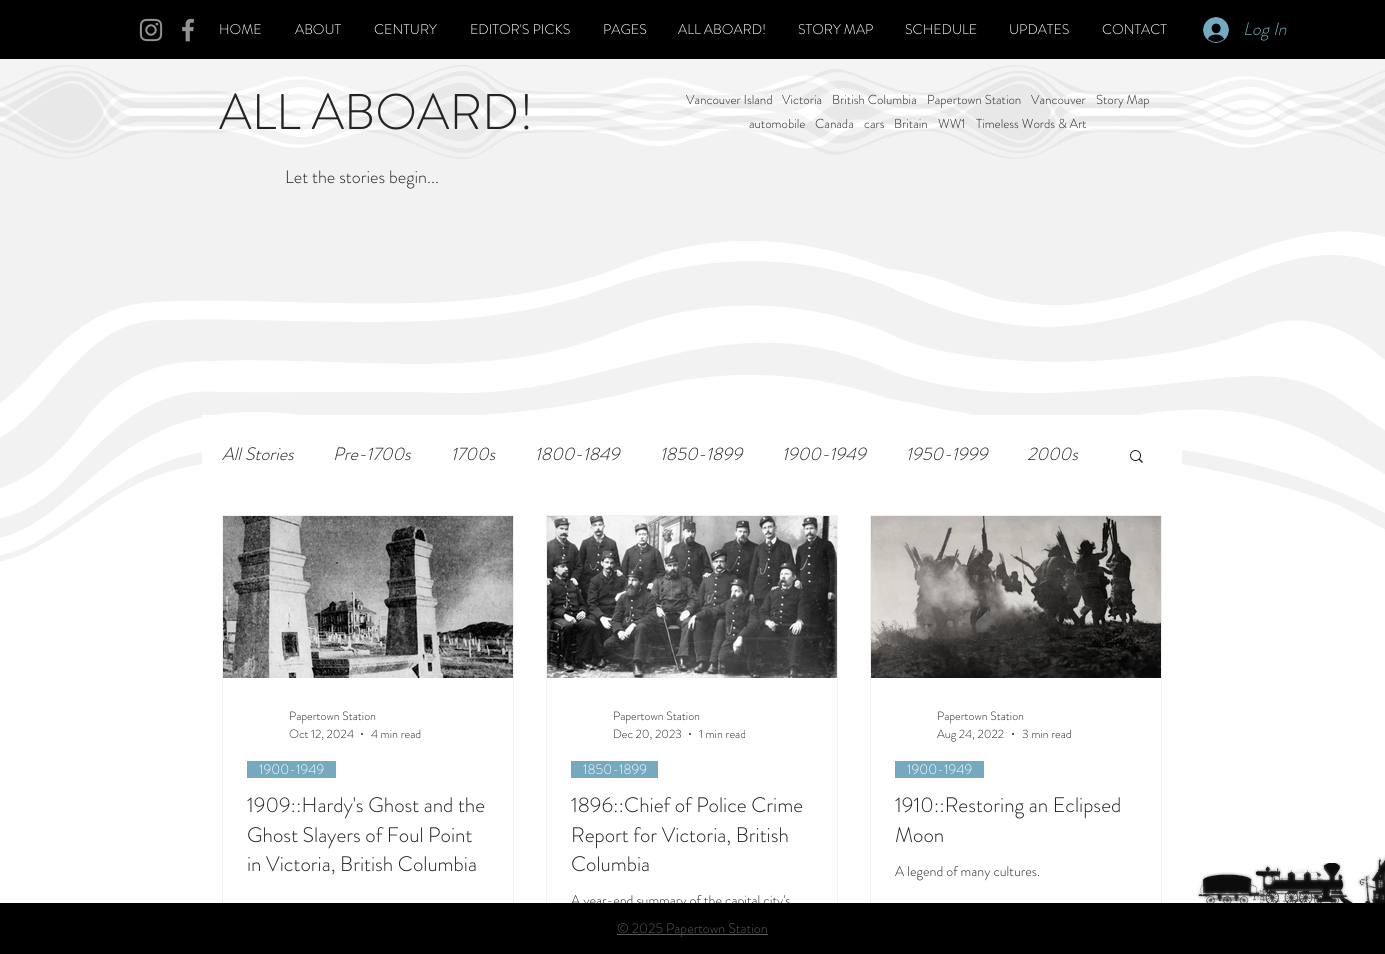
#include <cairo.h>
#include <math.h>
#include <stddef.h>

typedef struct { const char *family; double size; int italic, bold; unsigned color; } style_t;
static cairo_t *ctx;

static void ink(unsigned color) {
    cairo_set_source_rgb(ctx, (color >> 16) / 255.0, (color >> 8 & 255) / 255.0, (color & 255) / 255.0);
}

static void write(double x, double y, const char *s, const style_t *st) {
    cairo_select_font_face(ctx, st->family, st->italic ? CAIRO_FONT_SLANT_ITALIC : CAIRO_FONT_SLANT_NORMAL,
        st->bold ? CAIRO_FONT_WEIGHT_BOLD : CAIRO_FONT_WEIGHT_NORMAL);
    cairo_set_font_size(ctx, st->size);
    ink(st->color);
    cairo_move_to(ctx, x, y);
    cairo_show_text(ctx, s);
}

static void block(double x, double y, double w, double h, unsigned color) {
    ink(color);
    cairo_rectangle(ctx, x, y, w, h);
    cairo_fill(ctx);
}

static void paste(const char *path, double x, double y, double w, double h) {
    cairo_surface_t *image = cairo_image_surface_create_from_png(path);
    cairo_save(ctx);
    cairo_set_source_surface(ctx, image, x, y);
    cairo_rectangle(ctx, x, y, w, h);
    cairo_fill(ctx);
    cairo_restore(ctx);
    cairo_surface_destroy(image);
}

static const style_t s1 = {"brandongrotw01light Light", 14, 0, 0, 0xffffff};
static const style_t s2 = {"brandongrotw01light Light", 18, 1, 0, 0x75a9bf};
static const style_t s3 = {"brandongrotw01light Light", 50, 0, 0, 0x242323};
static const style_t s4 = {"brandongrotw01light Light", 13, 0, 0, 0x242323};
static const style_t s5 = {"brandongrotw01light Light", 18, 0, 0, 0x242323};
static const style_t s6 = {"brandongrotw01light Light", 18, 1, 0, 0x242323};
static const style_t s7 = {"brandongrotw01light Light", 12, 0, 0, 0x242323};
static const style_t s8 = {"brandongrotw01light Light", 21, 0, 0, 0x242323};
static const style_t s9 = {"brandongrotw01light Light", 14, 0, 0, 0x242323};
static const style_t s10 = {"brandongrotw01light Light", 14, 0, 0, 0x5b5a5a};

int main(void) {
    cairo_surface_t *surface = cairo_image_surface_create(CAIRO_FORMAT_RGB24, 1385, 954);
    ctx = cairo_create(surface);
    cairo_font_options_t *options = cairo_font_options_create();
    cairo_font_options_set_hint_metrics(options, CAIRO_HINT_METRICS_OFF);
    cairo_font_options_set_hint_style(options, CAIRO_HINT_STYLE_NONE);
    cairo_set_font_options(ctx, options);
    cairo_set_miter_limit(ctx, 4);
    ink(0xffffff);
    cairo_paint(ctx);
    block(0, 0, 1385, 59, 0x000000);
    paste("pic1.png", 139, 18, 24, 24);
    paste("pic2.png", 182, 18, 13, 24);
    write(219, 34, "HOME", &s1);
    write(295, 34, "ABOUT", &s1);
    write(374, 34, "CENTURY", &s1);
    write(470, 34, "EDITOR'S PICKS", &s1);
    write(603, 34, "PAGES", &s1);
    write(678, 34, "ALL ABOARD!", &s1);
    write(798, 34, "STORY MAP", &s1);
    write(905, 34, "SCHEDULE", &s1);
    write(1009, 34, "UPDATES", &s1);
    write(1102, 34, "CONTACT", &s1);
    paste("pic3.png", 1203, 17, 26, 26);
    write(1243, 35, "Log In", &s2);
    paste("pic4.png", 0, 59, 1385, 100);
    paste("pic5.png", 0, 65, 1385, 100);
    write(219, 129, "ALL ABOARD!", &s3);
    write(686, 104, "Vancouver Island", &s4);
    write(782, 104, "Victoria", &s4);
    write(832, 104, "British Columbia", &s4);
    write(927, 104, "Papertown Station", &s4);
    write(1031, 104, "Vancouver", &s4);
    write(1096, 104, "Story Map", &s4);
    write(749, 128, "automobile", &s4);
    write(815, 128, "Canada", &s4);
    write(864, 128, "cars", &s4);
    write(894, 128, "Britain", &s4);
    write(938, 128, "WW1", &s4);
    write(976, 128, "Timeless Words & Art", &s4);
    paste("pic6.png", 0, 165, 1385, 396);
    write(285, 183, "Let the stories begin...", &s5);
    block(202, 415, 980, 50, 0xffffff);
    write(222, 460, "All Stories", &s6);
    write(333, 460, "Pre-1700s", &s6);
    write(451, 460, "1700s", &s6);
    write(535, 460, "1800-1849", &s6);
    write(660, 460, "1850-1899", &s6);
    write(782, 460, "1900-1949", &s6);
    write(906, 460, "1950-1999", &s6);
    write(1027, 460, "2000s", &s6);
    paste("pic7.png", 1130, 450, 13, 13);
    cairo_rectangle(ctx, 222.5, 515.5, 291, 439);
    ink(0xf1f1f1);
    cairo_set_line_width(ctx, 1);
    cairo_stroke(ctx);
    paste("pic8.png", 223, 516, 290, 162);
    write(289, 720, "Papertown Station", &s7);
    write(289, 738, "Oct 12, 2024", &s7);
    cairo_new_path(ctx);
    cairo_arc(ctx, 362, 734, 1, 0, 2 * M_PI);
    cairo_fill(ctx);
    write(371, 738, "4 min read", &s7);
    block(247, 761, 89, 17, 0x75a9bf);
    write(259, 774, "1900-1949", &s1);
    write(247, 812, "1909::Hardy's Ghost and the", &s8);
    write(247, 842, "Ghost Slayers of Foul Point", &s8);
    write(247, 871, "in Victoria, British Columbia", &s8);
    cairo_rectangle(ctx, 546.5, 515.5, 291, 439);
    ink(0xf1f1f1);
    cairo_stroke(ctx);
    paste("pic9.png", 547, 516, 290, 162);
    write(613, 720, "Papertown Station", &s7);
    write(613, 738, "Dec 20, 2023", &s7);
    cairo_new_path(ctx);
    cairo_arc(ctx, 690, 734, 1, 0, 2 * M_PI);
    cairo_fill(ctx);
    write(699, 738, "1 min read", &s7);
    block(571, 761, 87, 17, 0x75a9bf);
    write(583, 774, "1850-1899", &s1);
    write(571, 812, "1896::Chief of Police Crime", &s8);
    write(571, 842, "Report for Victoria, British", &s8);
    write(571, 871, "Columbia", &s8);
    write(571, 905, "A year-end summary of the capital city's", &s9);
    cairo_rectangle(ctx, 870.5, 515.5, 291, 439);
    ink(0xf1f1f1);
    cairo_stroke(ctx);
    paste("pic10.png", 871, 516, 290, 162);
    write(937, 720, "Papertown Station", &s7);
    write(937, 738, "Aug 24, 2022", &s7);
    cairo_new_path(ctx);
    cairo_arc(ctx, 1013, 734, 1, 0, 2 * M_PI);
    cairo_fill(ctx);
    write(1022, 738, "3 min read", &s7);
    block(895, 761, 89, 17, 0x75a9bf);
    write(907, 774, "1900-1949", &s1);
    write(895, 812, "1910::Restoring an Eclipsed", &s8);
    write(895, 842, "Moon", &s8);
    write(895, 876, "A legend of many cultures.", &s9);
    paste("pic11.png", 1196, 863, 158, 40);
    paste("pic12.png", 1357, 855, 28, 48);
    block(0, 903, 1385, 51, 0x000000);
    block(617, 934, 151, 1, 0x5b5a5a);
    write(617, 933, "© 2025 Papertown Station", &s10);
    cairo_surface_write_to_png(surface, "screenshot.png");
    cairo_font_options_destroy(options);
    cairo_destroy(ctx);
    cairo_surface_destroy(surface);
    return 0;
}
